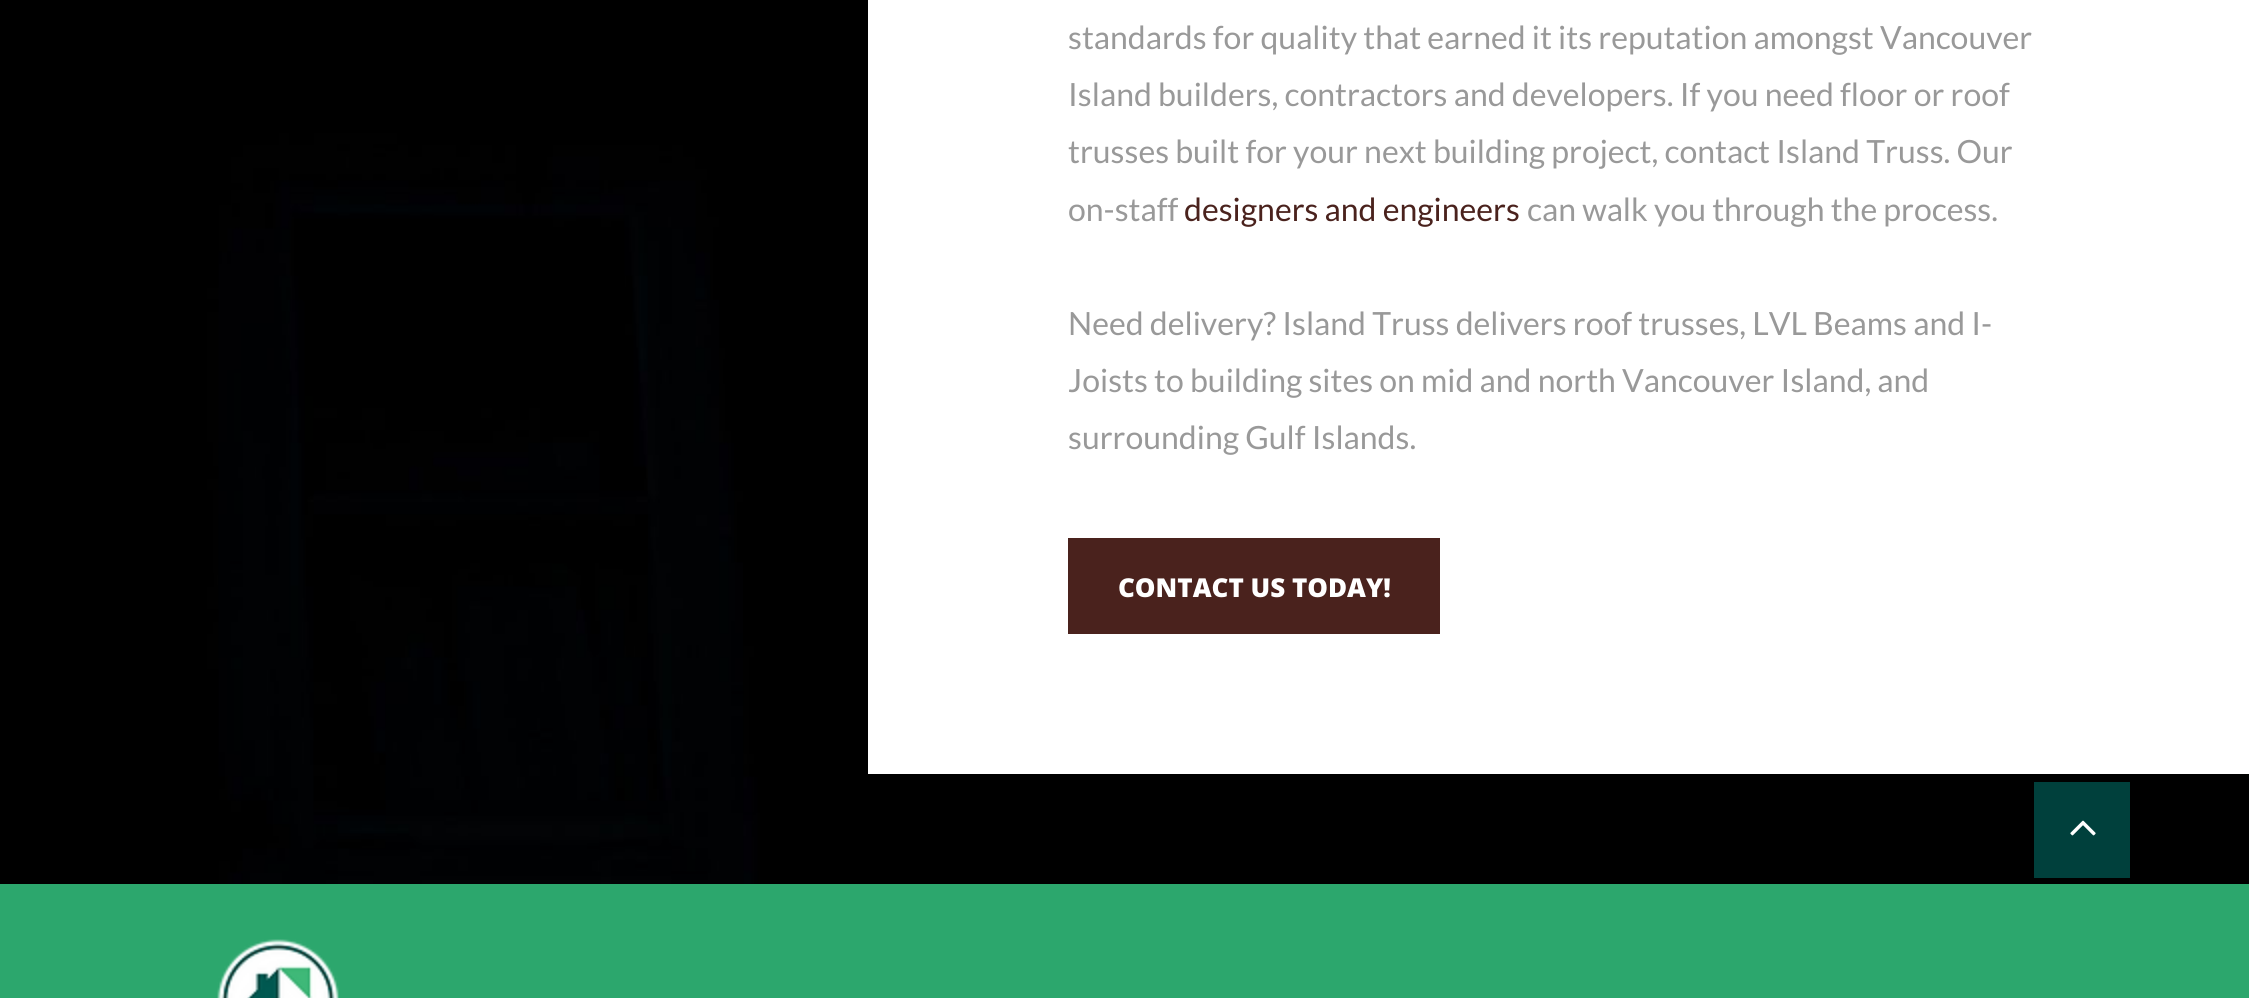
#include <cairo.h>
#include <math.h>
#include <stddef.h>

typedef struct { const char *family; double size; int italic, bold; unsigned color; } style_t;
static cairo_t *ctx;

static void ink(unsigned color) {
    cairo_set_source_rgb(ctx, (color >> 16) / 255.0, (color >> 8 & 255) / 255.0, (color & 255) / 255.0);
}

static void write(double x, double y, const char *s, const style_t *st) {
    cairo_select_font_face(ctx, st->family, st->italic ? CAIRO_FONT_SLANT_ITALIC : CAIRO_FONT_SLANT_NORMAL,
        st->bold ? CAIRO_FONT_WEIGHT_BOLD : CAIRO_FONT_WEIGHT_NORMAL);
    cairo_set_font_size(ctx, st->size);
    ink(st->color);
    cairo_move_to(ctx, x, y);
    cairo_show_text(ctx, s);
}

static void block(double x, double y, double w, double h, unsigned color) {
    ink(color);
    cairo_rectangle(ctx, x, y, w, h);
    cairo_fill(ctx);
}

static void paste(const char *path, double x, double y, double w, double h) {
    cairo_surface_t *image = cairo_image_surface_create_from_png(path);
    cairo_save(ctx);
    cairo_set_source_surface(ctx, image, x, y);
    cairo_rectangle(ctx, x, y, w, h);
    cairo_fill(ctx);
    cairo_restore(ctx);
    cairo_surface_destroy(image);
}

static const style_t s1 = {"Lato", 32, 0, 0, 0x999999};
static const style_t s2 = {"Lato", 32, 0, 0, 0x4a221d};
static const style_t s3 = {"Open Sans ExtraBold", 26, 0, 0, 0xffffff};

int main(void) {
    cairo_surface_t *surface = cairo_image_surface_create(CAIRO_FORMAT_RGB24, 2249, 998);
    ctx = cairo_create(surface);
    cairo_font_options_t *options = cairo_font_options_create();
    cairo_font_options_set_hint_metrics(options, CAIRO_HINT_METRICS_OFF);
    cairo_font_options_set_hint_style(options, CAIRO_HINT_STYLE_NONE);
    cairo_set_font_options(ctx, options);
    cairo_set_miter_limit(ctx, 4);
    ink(0xffffff);
    cairo_paint(ctx);
    paste("pic1.png", 0, 0, 2249, 884);
    block(868, 0, 1381, 774, 0xffffff);
    write(1068, 49, "standards for quality that earned it its reputation amongst Vancouver", &s1);
    write(1068, 106, "Island builders, contractors and developers. If you need floor or roof", &s1);
    write(1068, 163, "trusses built for your next building project, contact Island Truss. Our", &s1);
    write(1068, 221, "on-staff", &s1);
    write(1184, 221, "designers and engineers", &s2);
    write(1527, 221, "can walk you through the process.", &s1);
    write(1068, 335, "Need delivery? Island Truss delivers roof trusses, LVL Beams and I-", &s1);
    write(1068, 392, "Joists to building sites on mid and north Vancouver Island, and", &s1);
    write(1068, 449, "surrounding Gulf Islands.", &s1);
    block(1068, 538, 372, 96, 0x4a221d);
    write(1118, 597, "CONTACT US TODAY!", &s3);
    block(2034, 782, 96, 96, 0x00403c);
    paste("pic2.png", 2070, 820, 26, 16);
    block(0, 884, 2249, 114, 0x2ca76d);
    paste("pic3.png", 217, 939, 122, 59);
    cairo_surface_write_to_png(surface, "screenshot.png");
    cairo_font_options_destroy(options);
    cairo_destroy(ctx);
    cairo_surface_destroy(surface);
    return 0;
}
